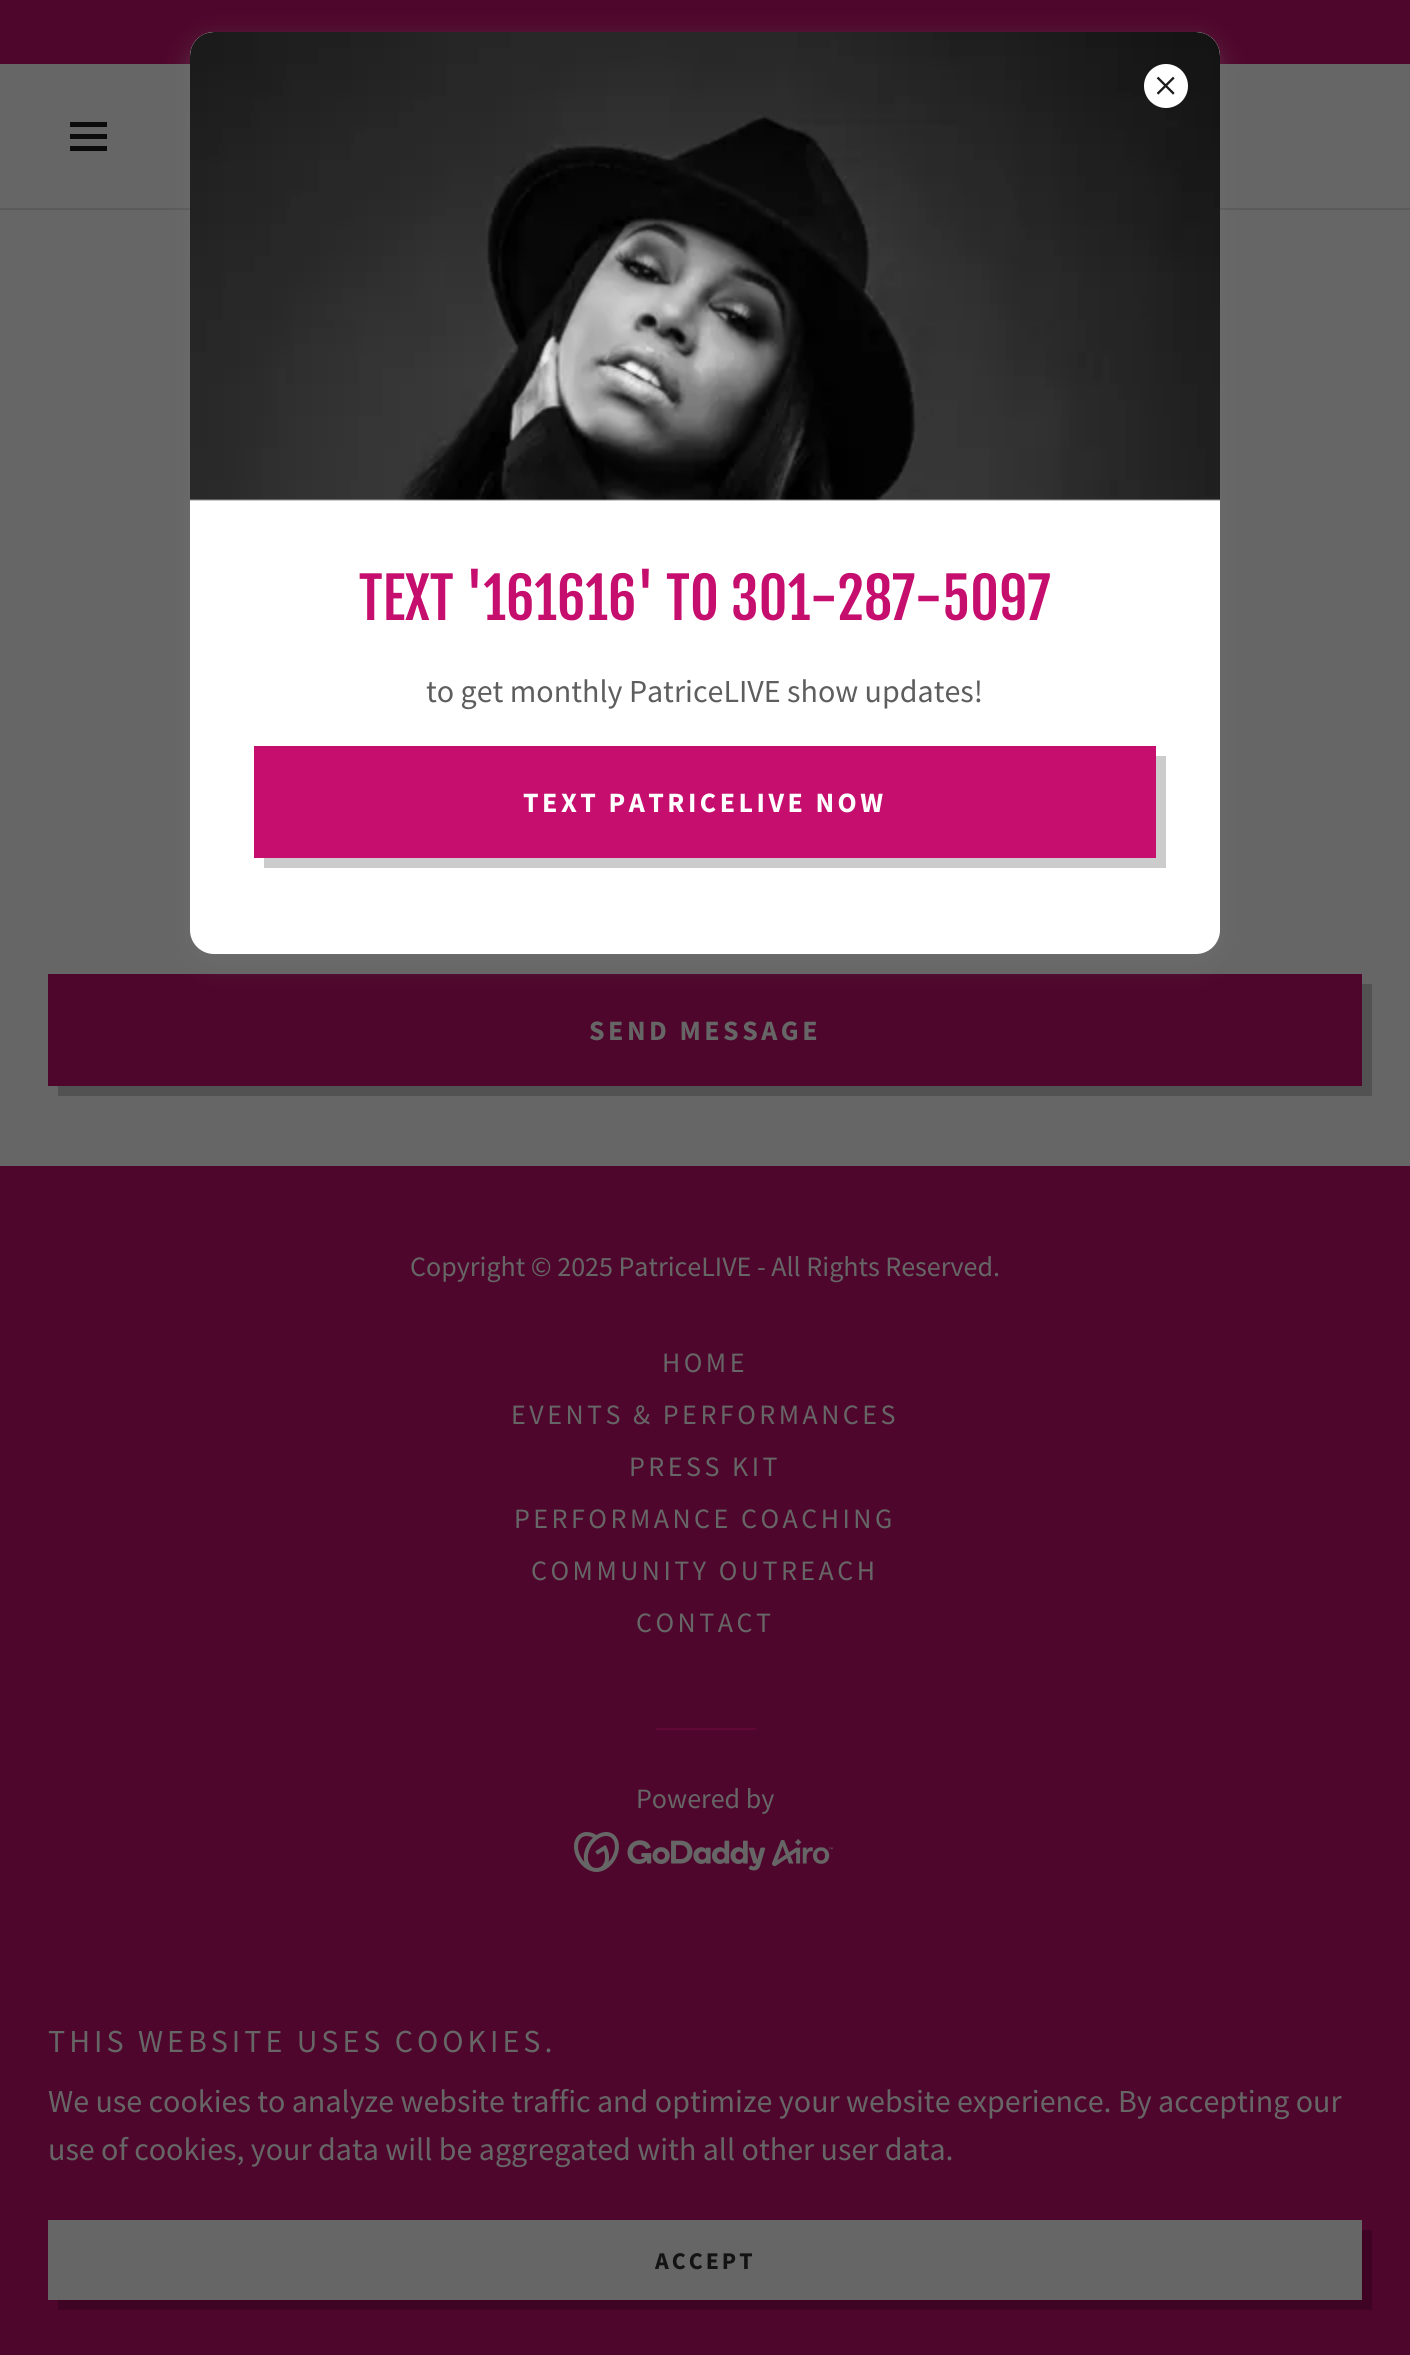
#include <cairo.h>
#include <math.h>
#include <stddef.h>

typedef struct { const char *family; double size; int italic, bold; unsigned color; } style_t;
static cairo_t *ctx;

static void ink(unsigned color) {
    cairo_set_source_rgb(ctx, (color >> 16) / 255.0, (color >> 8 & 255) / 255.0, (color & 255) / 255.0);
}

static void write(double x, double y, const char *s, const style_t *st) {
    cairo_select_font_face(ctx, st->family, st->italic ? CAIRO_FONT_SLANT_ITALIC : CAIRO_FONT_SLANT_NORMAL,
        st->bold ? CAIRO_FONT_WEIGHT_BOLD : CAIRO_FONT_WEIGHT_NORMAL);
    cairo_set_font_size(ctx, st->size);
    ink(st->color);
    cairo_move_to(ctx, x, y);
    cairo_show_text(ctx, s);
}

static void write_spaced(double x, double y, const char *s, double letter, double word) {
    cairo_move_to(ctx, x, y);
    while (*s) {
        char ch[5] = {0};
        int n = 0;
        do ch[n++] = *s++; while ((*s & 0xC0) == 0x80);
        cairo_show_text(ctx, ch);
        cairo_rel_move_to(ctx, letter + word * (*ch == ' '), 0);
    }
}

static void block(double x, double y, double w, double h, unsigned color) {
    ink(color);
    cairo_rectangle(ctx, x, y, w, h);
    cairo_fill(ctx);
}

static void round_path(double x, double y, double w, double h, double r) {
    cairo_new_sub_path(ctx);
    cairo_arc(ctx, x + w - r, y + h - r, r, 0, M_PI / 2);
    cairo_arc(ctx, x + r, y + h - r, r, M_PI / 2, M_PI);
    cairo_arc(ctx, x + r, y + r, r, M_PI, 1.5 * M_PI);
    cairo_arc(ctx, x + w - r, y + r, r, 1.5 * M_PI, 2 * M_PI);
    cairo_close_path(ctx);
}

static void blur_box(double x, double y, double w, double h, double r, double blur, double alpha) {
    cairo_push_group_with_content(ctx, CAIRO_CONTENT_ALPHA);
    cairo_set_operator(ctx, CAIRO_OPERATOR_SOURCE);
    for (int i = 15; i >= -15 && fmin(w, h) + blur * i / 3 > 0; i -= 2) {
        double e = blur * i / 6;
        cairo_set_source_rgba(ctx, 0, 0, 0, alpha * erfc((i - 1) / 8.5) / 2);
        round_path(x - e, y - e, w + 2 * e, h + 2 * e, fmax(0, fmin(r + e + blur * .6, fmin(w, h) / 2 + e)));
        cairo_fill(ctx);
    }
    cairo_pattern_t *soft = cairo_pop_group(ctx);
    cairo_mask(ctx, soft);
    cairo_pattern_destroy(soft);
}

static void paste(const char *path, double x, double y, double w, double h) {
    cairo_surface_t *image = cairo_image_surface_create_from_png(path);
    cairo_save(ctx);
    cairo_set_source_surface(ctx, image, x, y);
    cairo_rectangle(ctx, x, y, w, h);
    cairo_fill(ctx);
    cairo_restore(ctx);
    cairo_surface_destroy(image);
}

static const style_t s1 = {"Fjalla One", 56, 0, 0, 0xc50e6d};
static const style_t s2 = {"Source Sans Pro", 32, 0, 0, 0x5e5e5e};
static const style_t s3 = {"Source Sans Pro", 28, 0, 0, 0x666666};
static const style_t s4 = {"Source Sans Pro", 32, 0, 0, 0x666666};

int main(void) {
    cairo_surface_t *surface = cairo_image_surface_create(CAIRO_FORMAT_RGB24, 1410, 2355);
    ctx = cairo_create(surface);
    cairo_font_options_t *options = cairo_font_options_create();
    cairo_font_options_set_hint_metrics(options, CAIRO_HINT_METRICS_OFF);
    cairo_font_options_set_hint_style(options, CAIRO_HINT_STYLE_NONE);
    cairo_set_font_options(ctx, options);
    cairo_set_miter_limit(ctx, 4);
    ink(0x4f062c);
    cairo_paint(ctx);
    block(0, 64, 1410, 144, 0x666666);
    block(70, 122, 37, 5, 0x0b0b0b);
    block(70, 134, 37, 5, 0x0b0b0b);
    block(70, 146, 37, 5, 0x0b0b0b);
    block(0, 208, 1410, 2, 0x5a5a5a);
    block(0, 210, 1410, 956, 0x666666);
    block(48, 974, 1314, 112, 0x4f062c);
    ink(0x525252);
    cairo_new_path(ctx);
    cairo_move_to(ctx, 58, 1086);
    cairo_line_to(ctx, 58, 1096);
    cairo_line_to(ctx, 1372, 1096);
    cairo_line_to(ctx, 1372, 984);
    cairo_line_to(ctx, 1362, 984);
    cairo_line_to(ctx, 1362, 1086);
    cairo_close_path(ctx);
    cairo_fill(ctx);
    ink(0x757575);
    blur_box(190, 40, 1030, 922, 24, 12, 0.4);
    ink(0xffffff);
    round_path(190, 32, 1030, 922, 24);
    cairo_fill(ctx);
    paste("pic2.png", 190, 32, 1030, 469);
    cairo_arc(ctx, 1166, 86, 22, 0, 2 * M_PI);
    cairo_fill(ctx);
    paste("pic1.png", 1156, 76, 19, 19);
    write(359, 620, "TEXT '161616' TO 301-287-5097", &s1);
    write(426, 702, "to get monthly PatriceLIVE show updates!", &s2);
    block(254, 746, 902, 112, 0xc50e6d);
    ink(0xcccccc);
    cairo_new_path(ctx);
    cairo_move_to(ctx, 264, 858);
    cairo_line_to(ctx, 264, 868);
    cairo_line_to(ctx, 1166, 868);
    cairo_line_to(ctx, 1166, 756);
    cairo_line_to(ctx, 1156, 756);
    cairo_line_to(ctx, 1156, 858);
    cairo_close_path(ctx);
    cairo_fill(ctx);
    cairo_select_font_face(ctx, "Source Sans Pro", CAIRO_FONT_SLANT_NORMAL, CAIRO_FONT_WEIGHT_BOLD);
    cairo_set_font_size(ctx, 28);
    ink(0xffffff);
    write_spaced(523, 812, "TEXT PATRICELIVE NOW", 3.5, 0);
    ink(0x666666);
    write_spaced(589, 1040, "SEND MESSAGE", 3.5, 0);
    write(410, 1276, "Copyright © 2025 PatriceLIVE - All Rights Reserved.", &s3);
    write_spaced(662, 1372, "HOME", 3.5, 0);
    write_spaced(511, 1424, "EVENTS & PERFORMANCES", 3.5, 0);
    write_spaced(629, 1476, "PRESS KIT", 3.5, 0);
    write_spaced(514, 1528, "PERFORMANCE COACHING", 3.5, 0);
    write_spaced(531, 1580, "COMMUNITY OUTREACH", 3.5, 0);
    write_spaced(636, 1632, "CONTACT", 3.5, 0);
    block(656, 1728, 100, 2, 0x610836);
    write(636, 1808, "Powered by", &s3);
    paste("pic3.png", 574, 1832, 259, 40);
    cairo_set_font_size(ctx, 32);
    write_spaced(48, 2052, "THIS WEBSITE USES COOKIES.", 4, 0);
    write(48, 2112, "We use cookies to analyze website traffic and optimize your website experience. By accepting our", &s4);
    write(48, 2160, "use of cookies, your data will be aggregated with all other user data.", &s4);
    block(48, 2220, 1314, 80, 0x666666);
    ink(0x3f0423);
    cairo_new_path(ctx);
    cairo_move_to(ctx, 58, 2300);
    cairo_line_to(ctx, 58, 2310);
    cairo_line_to(ctx, 1372, 2310);
    cairo_line_to(ctx, 1372, 2230);
    cairo_line_to(ctx, 1362, 2230);
    cairo_line_to(ctx, 1362, 2300);
    cairo_close_path(ctx);
    cairo_fill(ctx);
    cairo_select_font_face(ctx, "Source Sans Pro", CAIRO_FONT_SLANT_NORMAL, CAIRO_FONT_WEIGHT_BOLD);
    cairo_set_font_size(ctx, 24);
    ink(0x131313);
    write_spaced(655, 2269, "ACCEPT", 3, 0);
    cairo_surface_write_to_png(surface, "screenshot.png");
    cairo_font_options_destroy(options);
    cairo_destroy(ctx);
    cairo_surface_destroy(surface);
    return 0;
}
